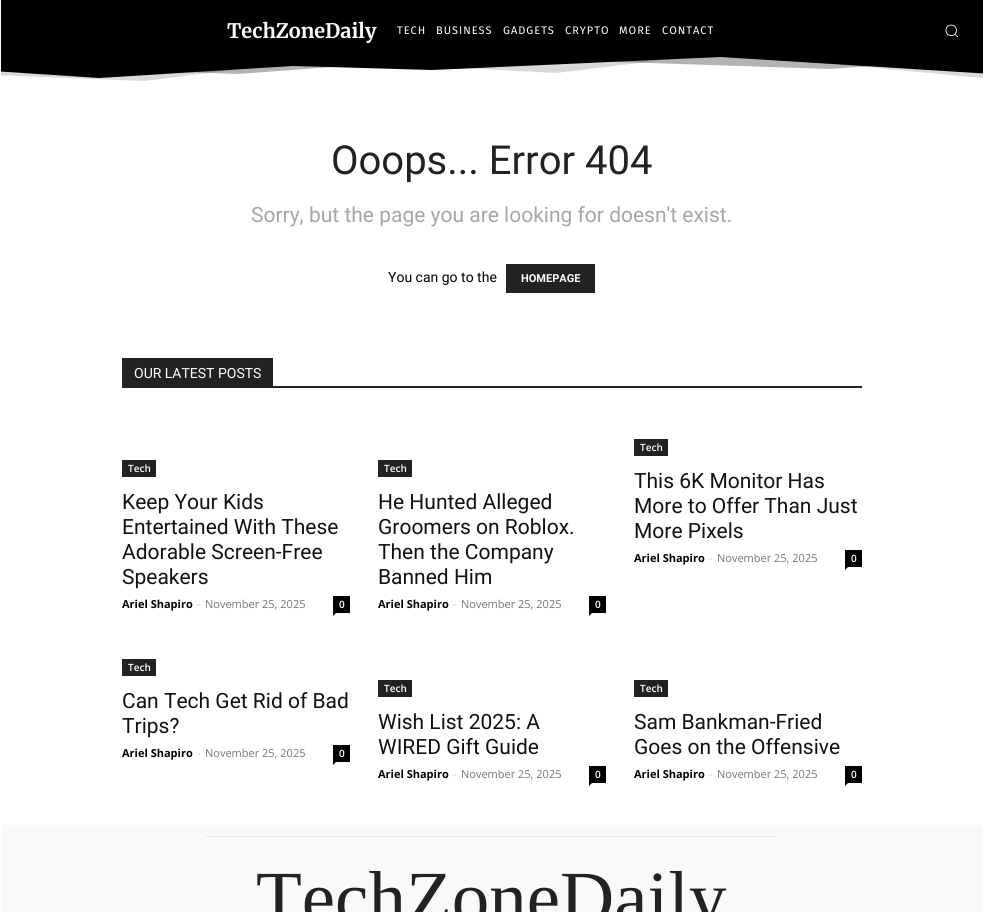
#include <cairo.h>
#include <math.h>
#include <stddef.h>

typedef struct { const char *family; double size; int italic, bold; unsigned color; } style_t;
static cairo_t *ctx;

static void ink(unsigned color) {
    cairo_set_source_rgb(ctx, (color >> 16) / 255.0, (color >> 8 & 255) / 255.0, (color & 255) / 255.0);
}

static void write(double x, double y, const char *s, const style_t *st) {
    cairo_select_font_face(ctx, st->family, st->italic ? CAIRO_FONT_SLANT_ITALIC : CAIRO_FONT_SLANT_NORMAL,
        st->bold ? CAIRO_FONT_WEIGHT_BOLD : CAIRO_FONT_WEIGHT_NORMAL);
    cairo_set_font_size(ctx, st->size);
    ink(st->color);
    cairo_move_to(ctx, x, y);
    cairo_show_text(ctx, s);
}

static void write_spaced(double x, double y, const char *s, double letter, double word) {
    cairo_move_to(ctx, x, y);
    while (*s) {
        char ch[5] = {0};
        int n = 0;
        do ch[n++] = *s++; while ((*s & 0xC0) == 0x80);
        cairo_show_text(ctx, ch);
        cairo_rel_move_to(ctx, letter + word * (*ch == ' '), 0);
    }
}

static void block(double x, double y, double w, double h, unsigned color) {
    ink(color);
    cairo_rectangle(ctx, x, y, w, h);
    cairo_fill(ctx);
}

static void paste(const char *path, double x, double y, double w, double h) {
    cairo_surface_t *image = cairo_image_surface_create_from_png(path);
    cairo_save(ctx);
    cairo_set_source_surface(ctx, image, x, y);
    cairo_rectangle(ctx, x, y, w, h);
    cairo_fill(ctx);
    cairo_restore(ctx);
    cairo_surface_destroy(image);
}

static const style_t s1 = {"Merriweather", 20, 0, 1, 0xffffff};
static const style_t s2 = {"Roboto", 40, 0, 0, 0x222222};
static const style_t s3 = {"Roboto", 21, 0, 0, 0xa6a6a6};
static const style_t s4 = {"Roboto", 14, 0, 0, 0x000000};
static const style_t s5 = {"Roboto", 11, 0, 1, 0xffffff};
static const style_t s6 = {"Roboto", 14, 0, 0, 0xffffff};
static const style_t s7 = {"Open Sans SemiBold", 10, 0, 0, 0xffffff};
static const style_t s8 = {"Roboto", 21, 0, 0, 0x111111};
static const style_t s9 = {"Open Sans", 11, 0, 1, 0x000000};
static const style_t s10 = {"Open Sans", 11, 0, 0, 0xcccccc};
static const style_t s11 = {"Open Sans", 11, 0, 0, 0x767676};
static const style_t s12 = {"Liberation Serif", 75, 0, 0, 0x222222};

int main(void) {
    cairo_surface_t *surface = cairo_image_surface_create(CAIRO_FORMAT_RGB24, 983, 912);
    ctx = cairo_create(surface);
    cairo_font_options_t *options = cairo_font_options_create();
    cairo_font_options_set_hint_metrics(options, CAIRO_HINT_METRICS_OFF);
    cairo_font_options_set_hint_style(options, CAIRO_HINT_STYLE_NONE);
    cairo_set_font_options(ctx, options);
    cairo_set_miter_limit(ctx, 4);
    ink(0xffffff);
    cairo_paint(ctx);
    block(1, 0, 982, 56, 0x000000);
    write(227, 38, "TechZoneDaily", &s1);
    cairo_select_font_face(ctx, "Fira Sans", CAIRO_FONT_SLANT_NORMAL, CAIRO_FONT_WEIGHT_NORMAL);
    cairo_set_font_size(ctx, 11);
    write_spaced(397, 34, "TECH", 1, 0);
    write_spaced(436, 34, "BUSINESS", 1, 0);
    write_spaced(503, 34, "GADGETS", 1, 0);
    write_spaced(565, 34, "CRYPTO", 1, 0);
    write_spaced(619, 34, "MORE", 1, 0);
    write_spaced(662, 34, "CONTACT", 1, 0);
    paste("pic1.png", 945, 24, 13, 14);
    cairo_save(ctx);
    cairo_rectangle(ctx, 1, 56, 982, 30);
    cairo_clip(ctx);
    ink(0x000000);
    cairo_new_path(ctx);
    cairo_move_to(ctx, -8, 47);
    cairo_line_to(ctx, -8, 71);
    cairo_line_to(ctx, 99, 78);
    cairo_line_to(ctx, 292, 66);
    cairo_line_to(ctx, 432, 70);
    cairo_line_to(ctx, 720, 57);
    cairo_line_to(ctx, 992, 74);
    cairo_line_to(ctx, 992, 47);
    cairo_close_path(ctx);
    cairo_fill(ctx);
    cairo_set_source_rgba(ctx, 0, 0, 0, 0.3);
    cairo_new_path(ctx);
    cairo_move_to(ctx, -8, 47);
    cairo_line_to(ctx, -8, 65);
    cairo_line_to(ctx, 238, 74);
    cairo_line_to(ctx, 466, 57);
    cairo_line_to(ctx, 830, 69);
    cairo_line_to(ctx, 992, 57);
    cairo_line_to(ctx, 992, 47);
    cairo_close_path(ctx);
    cairo_fill(ctx);
    cairo_set_source_rgba(ctx, 0, 0, 0, 0.15);
    cairo_new_path(ctx);
    cairo_move_to(ctx, -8, 47);
    cairo_line_to(ctx, -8, 75);
    cairo_line_to(ctx, 144, 81);
    cairo_line_to(ctx, 312, 60);
    cairo_line_to(ctx, 556, 73);
    cairo_line_to(ctx, 720, 53);
    cairo_line_to(ctx, 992, 79);
    cairo_line_to(ctx, 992, 47);
    cairo_close_path(ctx);
    cairo_fill(ctx);
    cairo_restore(ctx);
    write(331, 174, "Ooops... Error 404", &s2);
    write(251, 222, "Sorry, but the page you are looking for doesn't exist.", &s3);
    write(388, 282, "You can go to the", &s4);
    block(506, 264, 89, 29, 0x222222);
    write(521, 282, "HOMEPAGE", &s5);
    block(122, 386, 740, 2, 0x222222);
    block(122, 358, 151, 28, 0x222222);
    write(134, 378, "OUR LATEST POSTS", &s6);
    block(122, 460, 34, 17, 0x222222);
    write(128, 472, "Tech", &s7);
    write(122, 509, "Keep Your Kids", &s8);
    write(122, 534, "Entertained With These", &s8);
    write(122, 559, "Adorable Screen-Free", &s8);
    write(122, 584, "Speakers", &s8);
    write(122, 608, "Ariel Shapiro", &s9);
    write(197, 608, "-", &s10);
    write(205, 608, "November 25, 2025", &s11);
    block(333, 596, 17, 17, 0x000000);
    write(339, 608, "0", &s7);
    ink(0x000000);
    cairo_new_path(ctx);
    cairo_move_to(ctx, 333, 613);
    cairo_line_to(ctx, 336, 613);
    cairo_line_to(ctx, 333, 616);
    cairo_close_path(ctx);
    cairo_fill(ctx);
    block(378, 460, 34, 17, 0x222222);
    write(384, 472, "Tech", &s7);
    write(378, 509, "He Hunted Alleged", &s8);
    write(378, 534, "Groomers on Roblox.", &s8);
    write(378, 559, "Then the Company", &s8);
    write(378, 584, "Banned Him", &s8);
    write(378, 608, "Ariel Shapiro", &s9);
    write(453, 608, "-", &s10);
    write(461, 608, "November 25, 2025", &s11);
    block(589, 596, 17, 17, 0x000000);
    write(595, 608, "0", &s7);
    ink(0x000000);
    cairo_new_path(ctx);
    cairo_move_to(ctx, 589, 613);
    cairo_line_to(ctx, 592, 613);
    cairo_line_to(ctx, 589, 616);
    cairo_close_path(ctx);
    cairo_fill(ctx);
    block(634, 439, 34, 17, 0x222222);
    write(640, 451, "Tech", &s7);
    write(634, 488, "This 6K Monitor Has", &s8);
    write(634, 513, "More to Offer Than Just", &s8);
    write(634, 538, "More Pixels", &s8);
    write(634, 562, "Ariel Shapiro", &s9);
    write(709, 562, "-", &s10);
    write(717, 562, "November 25, 2025", &s11);
    block(845, 550, 17, 17, 0x000000);
    write(851, 562, "0", &s7);
    ink(0x000000);
    cairo_new_path(ctx);
    cairo_move_to(ctx, 845, 567);
    cairo_line_to(ctx, 848, 567);
    cairo_line_to(ctx, 845, 570);
    cairo_close_path(ctx);
    cairo_fill(ctx);
    block(122, 659, 34, 17, 0x222222);
    write(128, 671, "Tech", &s7);
    write(122, 708, "Can Tech Get Rid of Bad", &s8);
    write(122, 733, "Trips?", &s8);
    write(122, 757, "Ariel Shapiro", &s9);
    write(197, 757, "-", &s10);
    write(205, 757, "November 25, 2025", &s11);
    block(333, 745, 17, 17, 0x000000);
    write(339, 757, "0", &s7);
    ink(0x000000);
    cairo_new_path(ctx);
    cairo_move_to(ctx, 333, 762);
    cairo_line_to(ctx, 336, 762);
    cairo_line_to(ctx, 333, 765);
    cairo_close_path(ctx);
    cairo_fill(ctx);
    block(378, 680, 34, 17, 0x222222);
    write(384, 692, "Tech", &s7);
    write(378, 729, "Wish List 2025: A", &s8);
    write(378, 754, "WIRED Gift Guide", &s8);
    write(378, 778, "Ariel Shapiro", &s9);
    write(453, 778, "-", &s10);
    write(461, 778, "November 25, 2025", &s11);
    block(589, 766, 17, 17, 0x000000);
    write(595, 778, "0", &s7);
    ink(0x000000);
    cairo_new_path(ctx);
    cairo_move_to(ctx, 589, 783);
    cairo_line_to(ctx, 592, 783);
    cairo_line_to(ctx, 589, 786);
    cairo_close_path(ctx);
    cairo_fill(ctx);
    block(634, 680, 34, 17, 0x222222);
    write(640, 692, "Tech", &s7);
    write(634, 729, "Sam Bankman-Fried", &s8);
    write(634, 754, "Goes on the Offensive", &s8);
    write(634, 778, "Ariel Shapiro", &s9);
    write(709, 778, "-", &s10);
    write(717, 778, "November 25, 2025", &s11);
    block(845, 766, 17, 17, 0x000000);
    write(851, 778, "0", &s7);
    ink(0x000000);
    cairo_new_path(ctx);
    cairo_move_to(ctx, 845, 783);
    cairo_line_to(ctx, 848, 783);
    cairo_line_to(ctx, 845, 786);
    cairo_close_path(ctx);
    cairo_fill(ctx);
    cairo_save(ctx);
    cairo_rectangle(ctx, 1, 825, 982, 1);
    cairo_clip(ctx);
    ink(0xf9f9f9);
    cairo_new_path(ctx);
    cairo_move_to(ctx, -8, 856);
    cairo_line_to(ctx, -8, 775);
    cairo_line_to(ctx, 99, 754);
    cairo_line_to(ctx, 292, 792);
    cairo_line_to(ctx, 432, 779);
    cairo_line_to(ctx, 720, 823);
    cairo_line_to(ctx, 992, 766);
    cairo_line_to(ctx, 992, 856);
    cairo_close_path(ctx);
    cairo_fill(ctx);
    cairo_restore(ctx);
    block(1, 826, 982, 86, 0xf9f9f9);
    block(205, 836, 573, 1, 0xeaeaea);
    write(256, 923, "TechZoneDaily", &s12);
    cairo_surface_write_to_png(surface, "screenshot.png");
    cairo_font_options_destroy(options);
    cairo_destroy(ctx);
    cairo_surface_destroy(surface);
    return 0;
}
